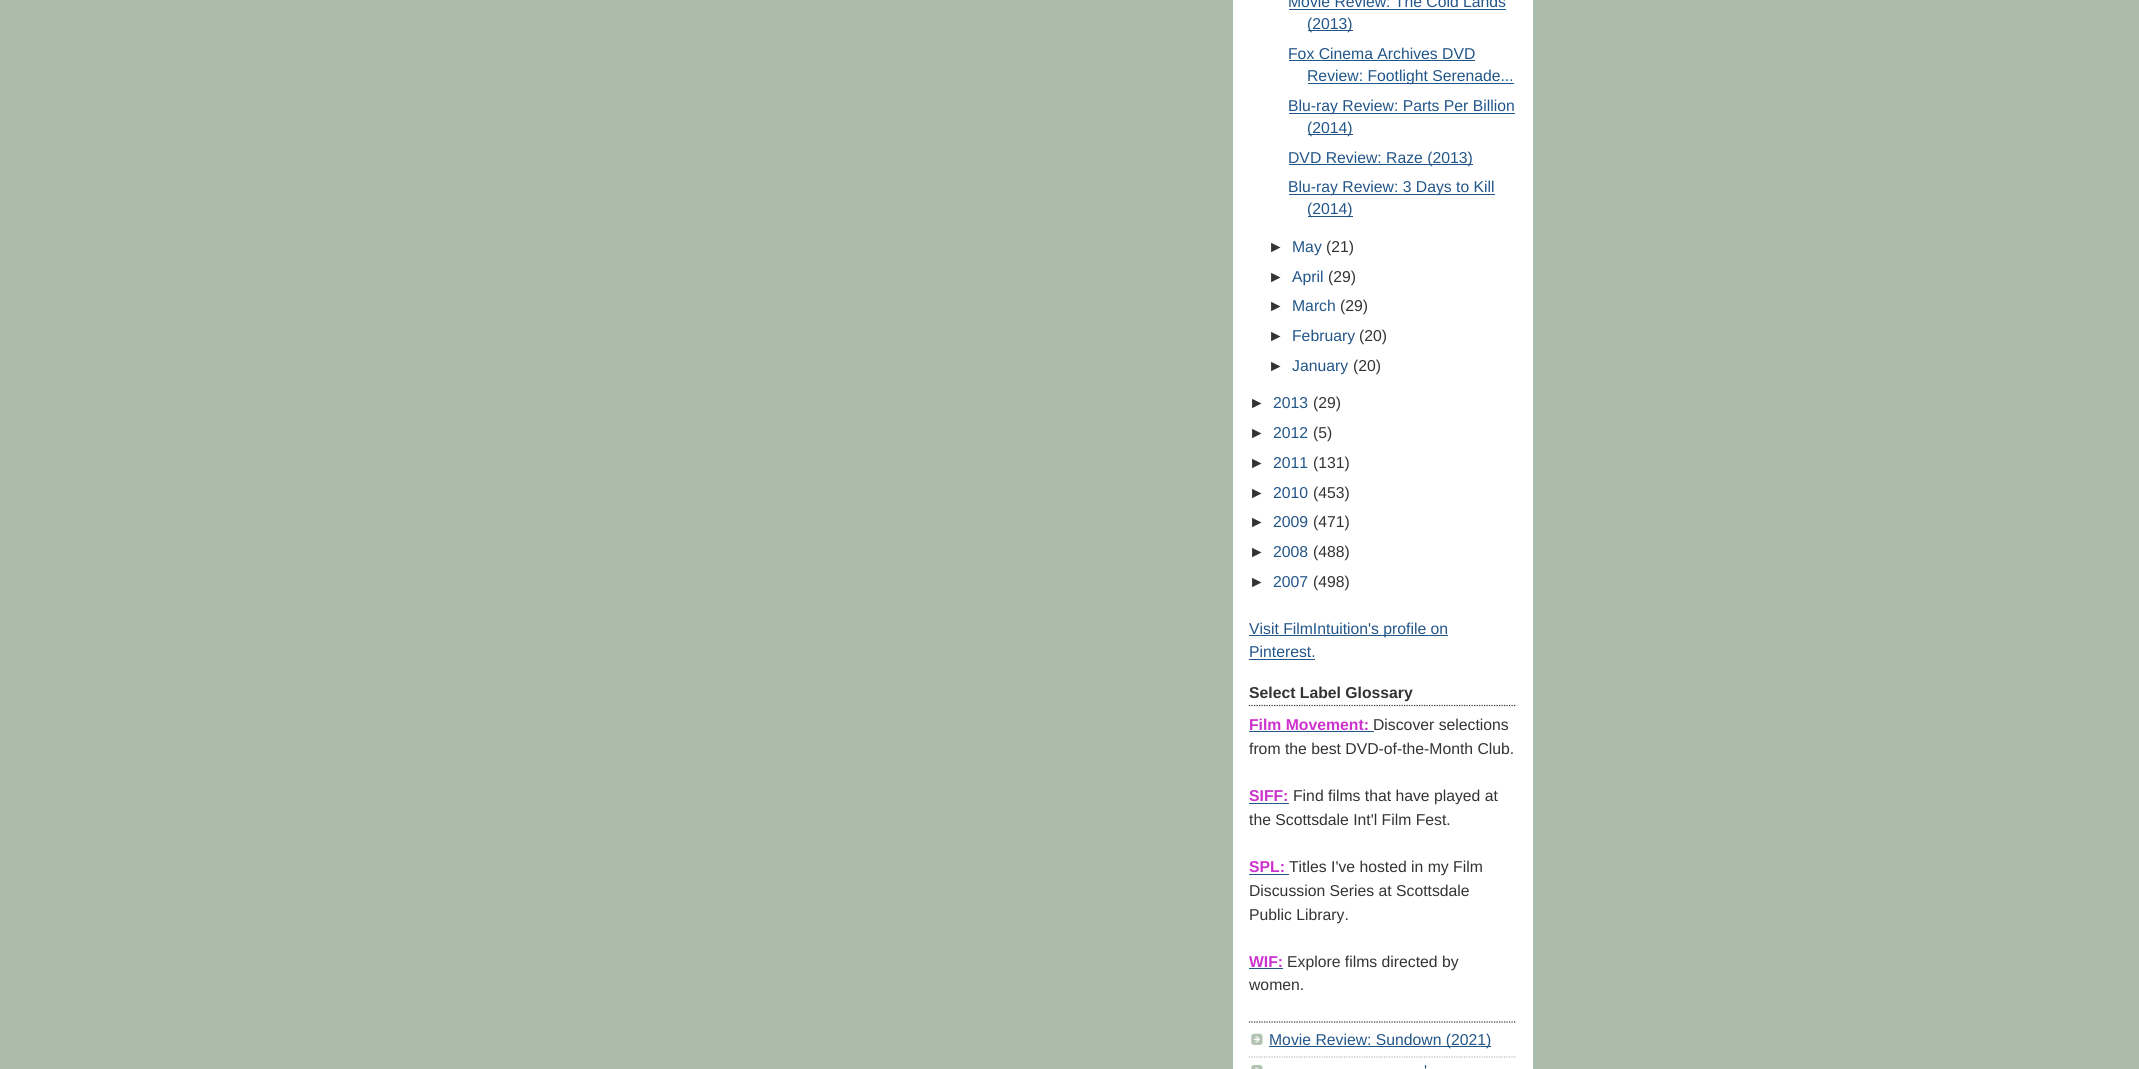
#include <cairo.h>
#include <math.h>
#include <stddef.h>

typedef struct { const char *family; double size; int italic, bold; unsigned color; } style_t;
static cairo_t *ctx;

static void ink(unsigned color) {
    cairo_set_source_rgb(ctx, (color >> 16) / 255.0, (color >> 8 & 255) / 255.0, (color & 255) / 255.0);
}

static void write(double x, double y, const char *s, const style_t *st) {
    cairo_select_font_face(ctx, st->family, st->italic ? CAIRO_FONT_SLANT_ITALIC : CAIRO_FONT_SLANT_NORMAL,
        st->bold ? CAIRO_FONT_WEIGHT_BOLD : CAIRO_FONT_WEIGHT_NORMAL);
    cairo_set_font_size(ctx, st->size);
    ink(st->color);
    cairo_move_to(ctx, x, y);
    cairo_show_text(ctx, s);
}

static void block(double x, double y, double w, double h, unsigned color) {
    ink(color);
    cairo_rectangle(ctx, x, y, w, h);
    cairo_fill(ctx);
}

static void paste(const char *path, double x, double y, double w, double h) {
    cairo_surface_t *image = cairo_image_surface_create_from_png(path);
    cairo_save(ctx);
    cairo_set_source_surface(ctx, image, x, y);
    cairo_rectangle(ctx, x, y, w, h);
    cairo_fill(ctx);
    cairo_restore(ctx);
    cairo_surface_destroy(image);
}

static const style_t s1 = {"Liberation Sans", 15.75, 0, 0, 0x225588};
static const style_t s2 = {"Liberation Sans", 15.75, 0, 0, 0x333333};
static const style_t s3 = {"Liberation Sans", 15.75, 0, 1, 0x333333};
static const style_t s4 = {"Liberation Sans", 15.75, 0, 1, 0xcc33cc};

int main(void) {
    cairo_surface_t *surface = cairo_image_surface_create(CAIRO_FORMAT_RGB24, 2139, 1069);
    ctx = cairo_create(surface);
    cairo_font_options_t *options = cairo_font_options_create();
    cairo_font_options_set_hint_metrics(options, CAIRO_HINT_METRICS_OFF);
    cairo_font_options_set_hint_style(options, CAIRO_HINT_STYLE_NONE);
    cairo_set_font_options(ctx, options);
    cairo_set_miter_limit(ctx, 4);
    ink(0xaabbaa);
    cairo_paint(ctx);
    block(1233, 0, 300, 1069, 0xffffff);
    write(1288, 7, "Movie Review: The Cold Lands", &s1);
    block(1289, 9, 217, 1, 0x225588);
    block(1308, 30, 45, 1, 0x225588);
    write(1307, 29, "(2013)", &s1);
    write(1288, 59, "Fox Cinema Archives DVD", &s1);
    block(1289, 60, 186, 1, 0x225588);
    block(1308, 83, 206, 1, 0x225588);
    write(1307, 81, "Review: Footlight Serenade...", &s1);
    block(1289, 113, 226, 1, 0x225588);
    write(1288, 111, "Blu-ray Review: Parts Per Billion", &s1);
    block(1308, 134, 45, 1, 0x225588);
    write(1307, 133, "(2014)", &s1);
    block(1289, 164, 184, 1, 0x225588);
    write(1288, 163, "DVD Review: Raze (2013)", &s1);
    block(1289, 194, 206, 1, 0x225588);
    write(1288, 192, "Blu-ray Review: 3 Days to Kill", &s1);
    block(1308, 216, 45, 1, 0x225588);
    write(1307, 214, "(2014)", &s1);
    write(1268, 252, "►", &s2);
    write(1292, 252, "May", &s1);
    write(1326, 252, "(21)", &s2);
    write(1268, 282, "►", &s2);
    write(1292, 282, "April", &s1);
    write(1328, 282, "(29)", &s2);
    write(1268, 311, "►", &s2);
    write(1292, 311, "March", &s1);
    write(1340, 311, "(29)", &s2);
    write(1268, 341, "►", &s2);
    write(1292, 341, "February", &s1);
    write(1359, 341, "(20)", &s2);
    write(1268, 371, "►", &s2);
    write(1292, 371, "January", &s1);
    write(1353, 371, "(20)", &s2);
    write(1249, 408, "►", &s2);
    write(1273, 408, "2013", &s1);
    write(1313, 408, "(29)", &s2);
    write(1249, 438, "►", &s2);
    write(1273, 438, "2012", &s1);
    write(1313, 438, "(5)", &s2);
    write(1249, 468, "►", &s2);
    write(1273, 468, "2011", &s1);
    write(1313, 468, "(131)", &s2);
    write(1249, 498, "►", &s2);
    write(1273, 498, "2010", &s1);
    write(1313, 498, "(453)", &s2);
    write(1249, 527, "►", &s2);
    write(1273, 527, "2009", &s1);
    write(1313, 527, "(471)", &s2);
    write(1249, 557, "►", &s2);
    write(1273, 557, "2008", &s1);
    write(1313, 557, "(488)", &s2);
    write(1249, 587, "►", &s2);
    write(1273, 587, "2007", &s1);
    write(1313, 587, "(498)", &s2);
    block(1249, 635, 199, 1, 0x225588);
    write(1249, 634, "Visit FilmIntuition's profile on", &s1);
    write(1249, 657, "Pinterest.", &s1);
    block(1249, 659, 66, 1, 0x225588);
    cairo_new_path(ctx);
    cairo_move_to(ctx, 1249, 705.5);
    cairo_line_to(ctx, 1516, 705.5);
    ink(0x333333);
    cairo_set_line_width(ctx, 1.2);
    cairo_set_dash(ctx, (double[]){1.25, 1.25}, 2, 0);
    cairo_stroke(ctx);
    write(1249, 698, "Select Label Glossary", &s3);
    write(1249, 730, "Film Movement:", &s4);
    block(1249, 731, 125, 1, 0x225588);
    write(1373, 730, "Discover selections", &s2);
    write(1249, 754, "from the best DVD-of-the-Month Club.", &s2);
    write(1249, 801, "SIFF:", &s4);
    block(1249, 803, 40, 1, 0x225588);
    write(1293, 801, "Find films that have played at", &s2);
    write(1249, 825, "the Scottsdale Int'l Film Fest.", &s2);
    write(1249, 872, "SPL:", &s4);
    block(1249, 874, 40, 1, 0x225588);
    write(1289, 872, "Titles I've hosted in my Film", &s2);
    write(1249, 896, "Discussion Series at Scottsdale", &s2);
    write(1249, 920, "Public Library.", &s2);
    write(1249, 967, "WIF:", &s4);
    block(1249, 968, 34, 1, 0x225588);
    write(1287, 967, "Explore films directed by", &s2);
    write(1249, 990, "women.", &s2);
    cairo_new_path(ctx);
    cairo_move_to(ctx, 1249, 1022);
    cairo_line_to(ctx, 1516, 1022);
    cairo_stroke(ctx);
    paste("pic1.png", 1251, 1033, 12, 12);
    cairo_new_path(ctx);
    cairo_move_to(ctx, 1249, 1057);
    cairo_line_to(ctx, 1516, 1057);
    ink(0xbbbbbb);
    cairo_stroke(ctx);
    block(1269, 1046, 222, 1, 0x225588);
    write(1269, 1045, "Movie Review: Sundown (2021)", &s1);
    paste("pic2.png", 1251, 1065, 12, 4);
    write(1424, 1076, "'", &s1);
    cairo_surface_write_to_png(surface, "screenshot.png");
    cairo_font_options_destroy(options);
    cairo_destroy(ctx);
    cairo_surface_destroy(surface);
    return 0;
}
